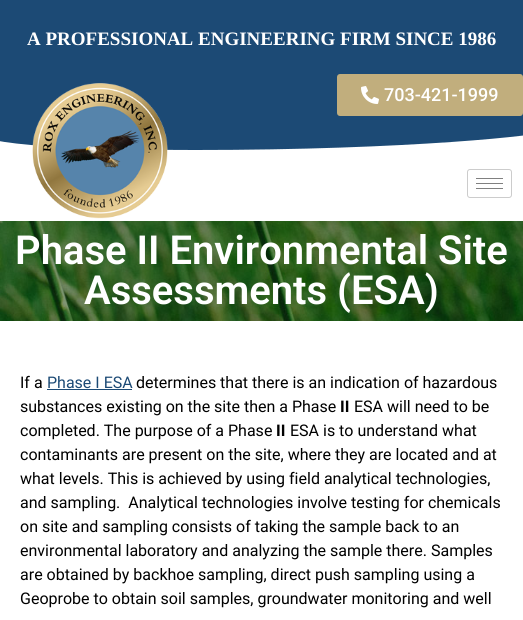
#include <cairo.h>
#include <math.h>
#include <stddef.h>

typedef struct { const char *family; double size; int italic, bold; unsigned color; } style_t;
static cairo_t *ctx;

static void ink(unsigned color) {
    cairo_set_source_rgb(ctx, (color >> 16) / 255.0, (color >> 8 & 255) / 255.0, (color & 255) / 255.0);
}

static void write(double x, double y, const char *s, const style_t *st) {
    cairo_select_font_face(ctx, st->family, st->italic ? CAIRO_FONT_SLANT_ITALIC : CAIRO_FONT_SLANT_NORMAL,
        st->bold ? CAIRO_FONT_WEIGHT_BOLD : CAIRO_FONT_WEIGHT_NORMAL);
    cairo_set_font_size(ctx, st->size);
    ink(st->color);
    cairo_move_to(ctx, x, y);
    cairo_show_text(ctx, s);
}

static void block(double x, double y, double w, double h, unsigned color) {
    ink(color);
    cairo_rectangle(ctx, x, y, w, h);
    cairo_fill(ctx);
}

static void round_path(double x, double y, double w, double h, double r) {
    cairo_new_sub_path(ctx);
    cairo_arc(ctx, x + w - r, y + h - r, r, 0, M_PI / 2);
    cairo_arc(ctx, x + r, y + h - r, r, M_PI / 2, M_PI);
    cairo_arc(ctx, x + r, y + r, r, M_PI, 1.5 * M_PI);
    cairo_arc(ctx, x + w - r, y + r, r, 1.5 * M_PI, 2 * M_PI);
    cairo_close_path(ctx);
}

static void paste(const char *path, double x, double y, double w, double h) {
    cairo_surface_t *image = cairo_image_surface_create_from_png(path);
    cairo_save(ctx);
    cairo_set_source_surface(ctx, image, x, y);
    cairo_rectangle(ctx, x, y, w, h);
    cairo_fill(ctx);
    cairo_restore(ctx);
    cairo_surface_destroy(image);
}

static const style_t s1 = {"Liberation Serif", 19, 0, 1, 0xffffff};
static const style_t s2 = {"Roboto Medium", 18, 0, 0, 0xffffff};
static const style_t s3 = {"Roboto SemiBold", 40, 0, 0, 0xffffff};
static const style_t s4 = {"Roboto", 16, 0, 0, 0x000000};
static const style_t s5 = {"Roboto", 16, 0, 0, 0x1c4a75};
static const style_t s6 = {"Roboto", 16, 0, 1, 0x000000};

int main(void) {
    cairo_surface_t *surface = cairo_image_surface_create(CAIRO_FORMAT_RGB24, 523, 620);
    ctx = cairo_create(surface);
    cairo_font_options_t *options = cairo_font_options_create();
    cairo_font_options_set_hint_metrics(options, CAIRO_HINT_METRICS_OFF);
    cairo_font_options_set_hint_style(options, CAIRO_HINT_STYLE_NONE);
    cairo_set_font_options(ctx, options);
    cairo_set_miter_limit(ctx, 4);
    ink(0xffffff);
    cairo_paint(ctx);
    block(0, 0, 523, 130, 0x1c4a75);
    write(27, 45, "A PROFESSIONAL ENGINEERING FIRM SINCE 1986", &s1);
    ink(0xc1ae7d);
    round_path(337, 74, 186, 42, 3);
    cairo_fill(ctx);
    paste("pic1.png", 361, 86, 18, 18);
    write(384, 101, "703-421-1999", &s2);
    ink(0x1c4a75);
    cairo_new_path(ctx);
    cairo_move_to(ctx, 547, 130);
    cairo_line_to(ctx, 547, 131);
    cairo_curve_to(ctx, 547, 135, 409, 150, 195, 150);
    cairo_curve_to(ctx, -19, 150, -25, 135, -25, 131);
    cairo_line_to(ctx, -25, 130);
    cairo_close_path(ctx);
    cairo_fill(ctx);
    paste("pic2.png", 32, 83, 136, 136);
    round_path(467.5, 169.5, 44, 28, 2.5);
    ink(0xcccccc);
    cairo_set_line_width(ctx, 1);
    cairo_stroke(ctx);
    block(476, 178, 27, 1, 0x808080);
    block(476, 183, 27, 1, 0x808080);
    block(476, 188, 27, 1, 0x808080);
    paste("pic3.png", 0, 221, 523, 100);
    write(15, 264, "Phase II Environmental Site", &s3);
    write(84, 304, "Assessments (ESA)", &s3);
    write(20, 388, "If a", &s4);
    write(47, 388, "Phase I ESA", &s5);
    block(47, 389, 85, 1, 0x1c4a75);
    write(136, 388, "determines that there is an indication of hazardous", &s4);
    write(20, 412, "substances existing on the site then a Phase", &s4);
    write(340, 412, "II", &s6);
    write(354, 412, "ESA will need to be", &s4);
    write(20, 436, "completed. The purpose of a Phase", &s4);
    write(276, 436, "II", &s6);
    write(290, 436, "ESA is to understand what", &s4);
    write(20, 460, "contaminants are present on the site, where they are located and at", &s4);
    write(20, 484, "what levels. This is achieved by using field analytical technologies,", &s4);
    write(20, 508, "and sampling.  Analytical technologies involve testing for chemicals", &s4);
    write(20, 532, "on site and sampling consists of taking the sample back to an", &s4);
    write(20, 556, "environmental laboratory and analyzing the sample there. Samples", &s4);
    write(20, 580, "are obtained by backhoe sampling, direct push sampling using a", &s4);
    write(20, 604, "Geoprobe to obtain soil samples, groundwater monitoring and well", &s4);
    cairo_surface_write_to_png(surface, "screenshot.png");
    cairo_font_options_destroy(options);
    cairo_destroy(ctx);
    cairo_surface_destroy(surface);
    return 0;
}
